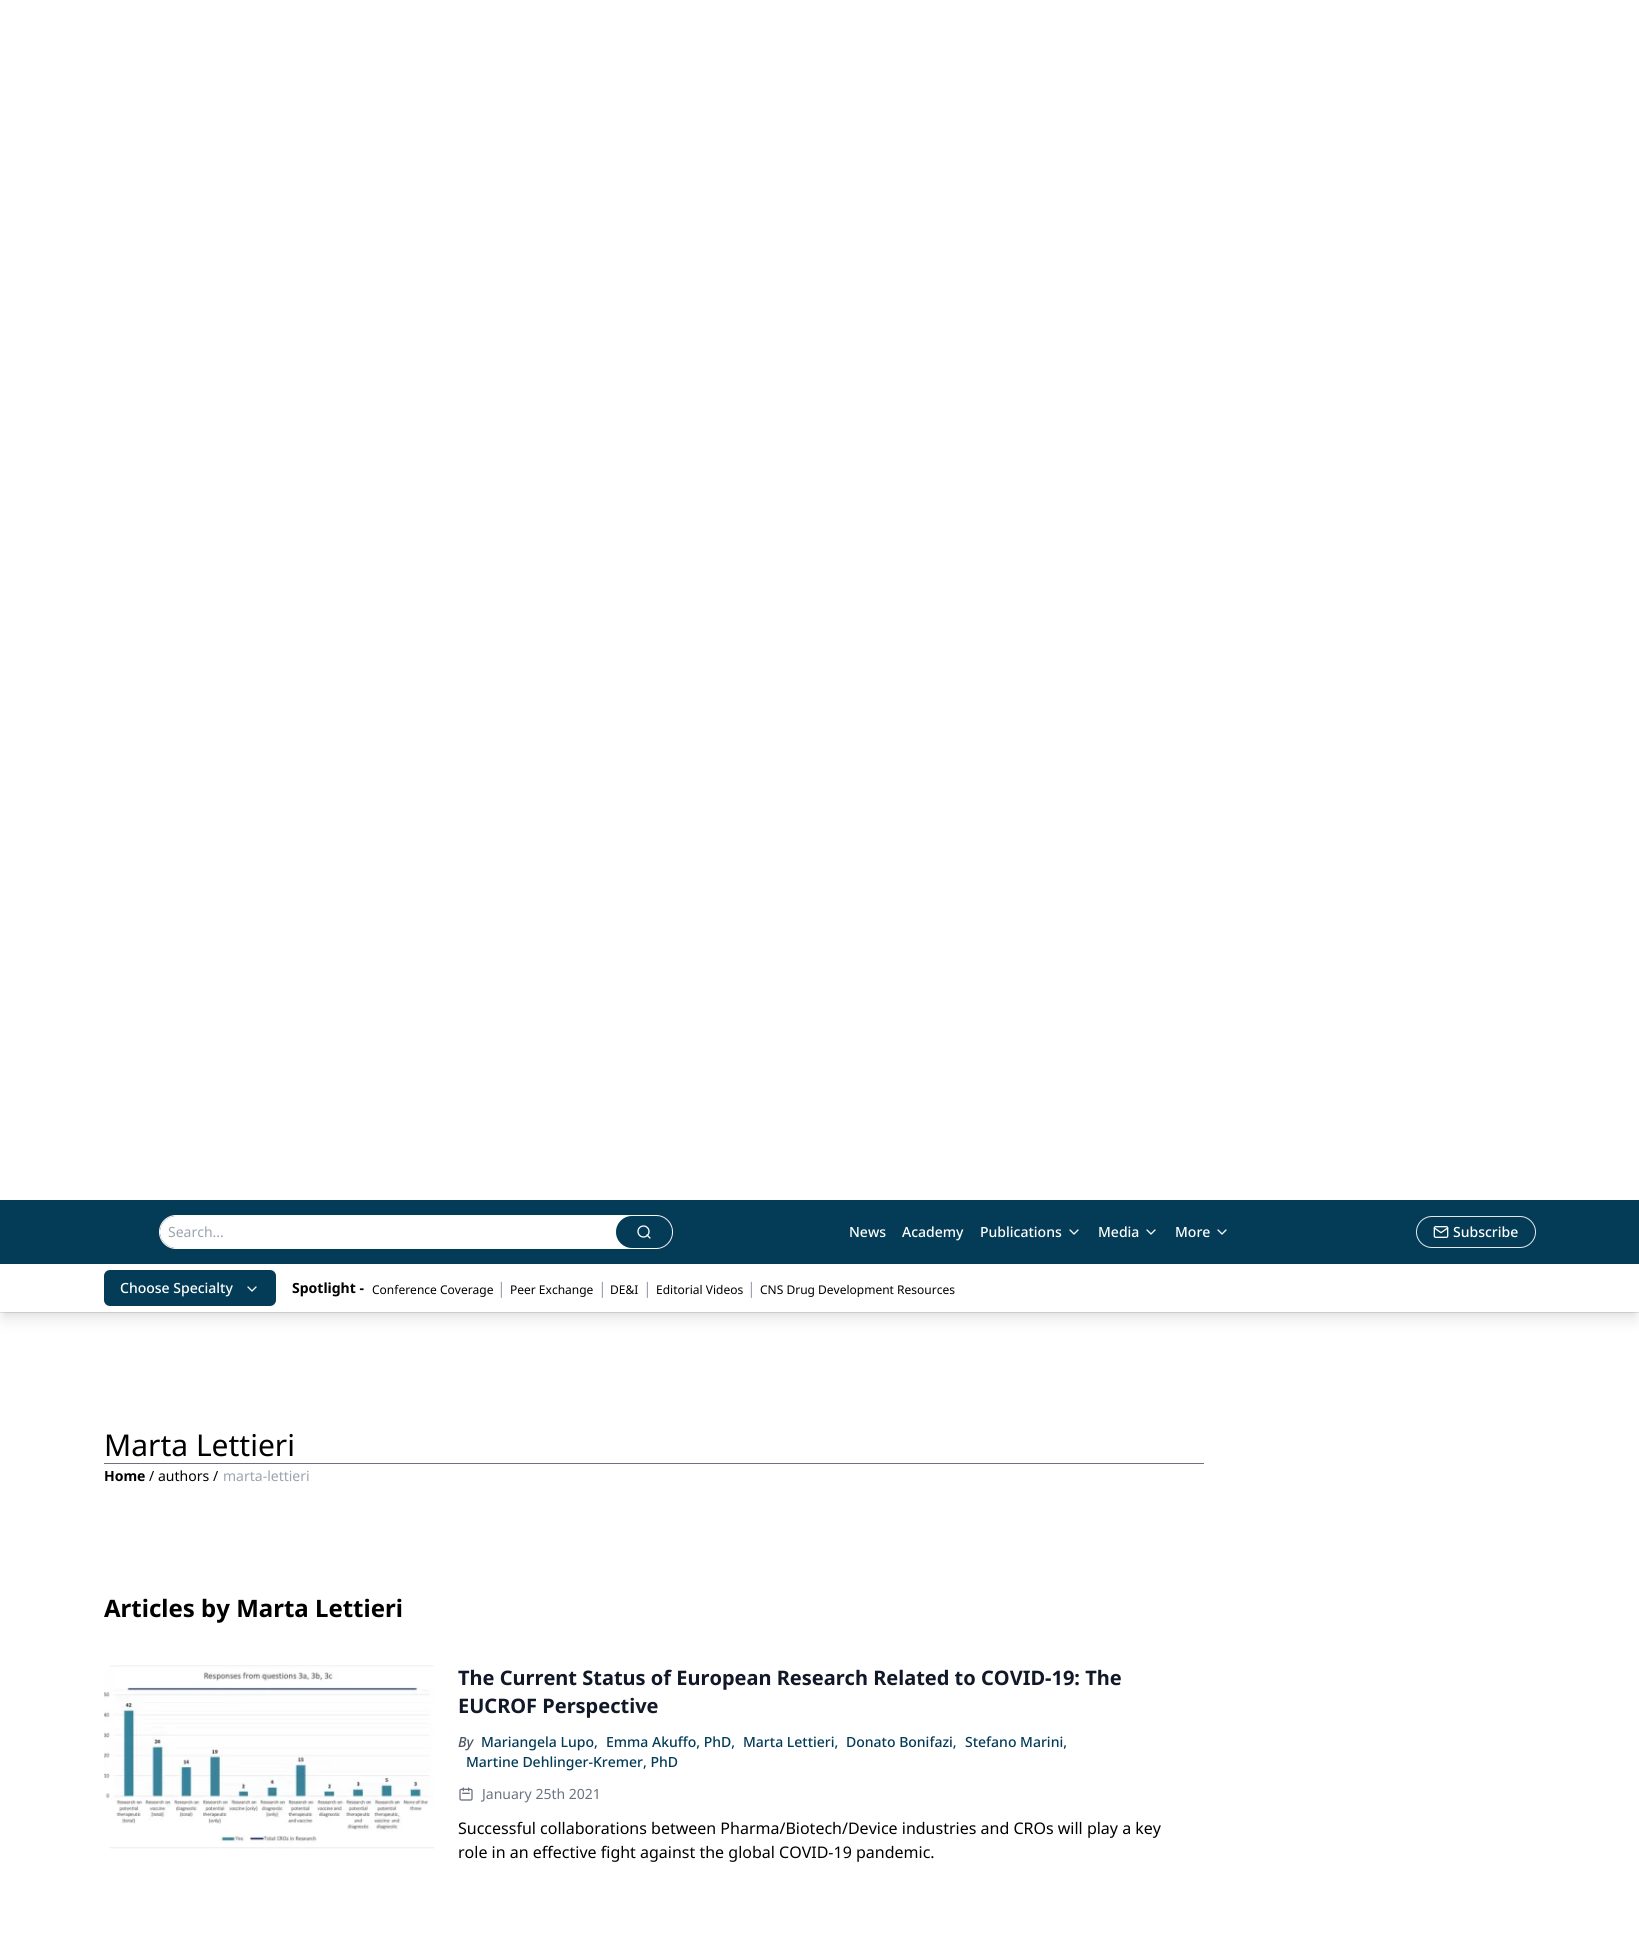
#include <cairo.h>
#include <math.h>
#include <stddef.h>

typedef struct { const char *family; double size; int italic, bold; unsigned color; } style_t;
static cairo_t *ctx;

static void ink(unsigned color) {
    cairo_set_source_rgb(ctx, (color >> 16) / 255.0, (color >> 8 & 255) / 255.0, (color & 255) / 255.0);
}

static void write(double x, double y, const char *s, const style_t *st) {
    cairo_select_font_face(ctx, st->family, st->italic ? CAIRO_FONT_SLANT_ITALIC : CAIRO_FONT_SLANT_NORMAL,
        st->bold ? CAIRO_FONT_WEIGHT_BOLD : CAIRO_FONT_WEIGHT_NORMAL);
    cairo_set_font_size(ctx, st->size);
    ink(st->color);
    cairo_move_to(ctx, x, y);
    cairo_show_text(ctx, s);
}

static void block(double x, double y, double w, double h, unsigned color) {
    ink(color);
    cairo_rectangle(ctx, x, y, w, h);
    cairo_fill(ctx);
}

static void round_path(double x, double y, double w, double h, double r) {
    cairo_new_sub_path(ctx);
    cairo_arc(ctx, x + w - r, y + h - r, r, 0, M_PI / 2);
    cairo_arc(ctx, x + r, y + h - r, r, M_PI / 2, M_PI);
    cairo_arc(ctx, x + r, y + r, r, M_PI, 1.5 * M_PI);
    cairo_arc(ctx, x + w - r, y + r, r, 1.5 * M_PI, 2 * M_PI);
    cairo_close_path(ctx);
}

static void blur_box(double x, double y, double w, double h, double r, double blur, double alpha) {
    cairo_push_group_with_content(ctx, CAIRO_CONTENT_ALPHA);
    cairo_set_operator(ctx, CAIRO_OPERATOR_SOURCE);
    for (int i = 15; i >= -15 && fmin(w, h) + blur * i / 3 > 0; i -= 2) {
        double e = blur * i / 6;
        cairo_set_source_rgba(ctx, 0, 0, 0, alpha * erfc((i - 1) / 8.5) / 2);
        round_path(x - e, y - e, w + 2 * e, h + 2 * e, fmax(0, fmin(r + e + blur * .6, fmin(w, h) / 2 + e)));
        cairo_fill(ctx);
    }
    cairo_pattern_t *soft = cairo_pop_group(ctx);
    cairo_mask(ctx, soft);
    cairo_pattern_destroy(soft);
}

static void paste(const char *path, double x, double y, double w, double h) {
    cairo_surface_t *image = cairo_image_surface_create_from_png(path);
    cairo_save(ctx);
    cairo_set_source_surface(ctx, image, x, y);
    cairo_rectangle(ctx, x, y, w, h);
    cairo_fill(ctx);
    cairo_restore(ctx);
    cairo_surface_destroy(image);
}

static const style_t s1 = {"Noto Sans", 14, 0, 0, 0x9ca3af};
static const style_t s2 = {"Noto Sans Medium", 14, 0, 0, 0xffffff};
static const style_t s3 = {"Noto Sans", 14, 0, 1, 0x000000};
static const style_t s4 = {"Noto Sans", 12, 0, 0, 0x000000};
static const style_t s5 = {"Noto Sans", 16, 0, 0, 0x9ca3af};
static const style_t s6 = {"Noto Sans", 30, 0, 0, 0x000000};
static const style_t s7 = {"Noto Sans", 14, 0, 0, 0x000000};
static const style_t s8 = {"Noto Sans", 24, 0, 1, 0x000000};
static const style_t s9 = {"Noto Sans", 20, 0, 1, 0x111827};
static const style_t s10 = {"Noto Sans Medium", 14, 1, 0, 0x4b5563};
static const style_t s11 = {"Noto Sans Medium", 14, 0, 0, 0x043c58};
static const style_t s12 = {"Noto Sans", 14, 0, 0, 0x6b7280};
static const style_t s13 = {"Noto Sans", 16, 0, 0, 0x000000};

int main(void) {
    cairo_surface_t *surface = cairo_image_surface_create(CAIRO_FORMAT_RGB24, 1639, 1943);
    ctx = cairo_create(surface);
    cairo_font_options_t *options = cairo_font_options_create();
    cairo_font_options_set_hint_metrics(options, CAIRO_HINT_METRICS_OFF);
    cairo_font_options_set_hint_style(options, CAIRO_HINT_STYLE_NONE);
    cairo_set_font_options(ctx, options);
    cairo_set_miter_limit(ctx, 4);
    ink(0xffffff);
    cairo_paint(ctx);
    block(0, 1200, 1639, 64, 0x043c58);
    block(0, 1312, 1639, 1, 0xe5e7eb);
    round_path(159.5, 1215.5, 513, 33, 16.5);
    ink(0xffffff);
    cairo_set_line_width(ctx, 1);
    cairo_stroke(ctx);
    round_path(160, 1216, 512, 32, 16);
    cairo_fill(ctx);
    write(168, 1237, "Search...", &s1);
    ink(0x043c58);
    round_path(616, 1216, 56, 32, 16);
    cairo_fill(ctx);
    cairo_arc(ctx, 643.5, 1231.5, 5.5, 0, 2 * M_PI);
    ink(0xffffff);
    cairo_set_line_width(ctx, 1.3);
    cairo_stroke(ctx);
    cairo_new_path(ctx);
    cairo_move_to(ctx, 650, 1238);
    cairo_line_to(ctx, 647, 1235);
    cairo_set_line_cap(ctx, CAIRO_LINE_CAP_ROUND);
    cairo_set_line_join(ctx, CAIRO_LINE_JOIN_ROUND);
    cairo_stroke(ctx);
    write(849, 1237, "News", &s2);
    write(902, 1237, "Academy", &s2);
    write(980, 1237, "Publications", &s2);
    cairo_new_path(ctx);
    cairo_move_to(ctx, 1070, 1230);
    cairo_line_to(ctx, 1074, 1234);
    cairo_line_to(ctx, 1078, 1230);
    cairo_stroke(ctx);
    write(1098, 1237, "Media", &s2);
    cairo_new_path(ctx);
    cairo_move_to(ctx, 1147, 1230);
    cairo_line_to(ctx, 1151, 1234);
    cairo_line_to(ctx, 1155, 1230);
    cairo_stroke(ctx);
    write(1175, 1237, "More", &s2);
    cairo_new_path(ctx);
    cairo_move_to(ctx, 1218, 1230);
    cairo_line_to(ctx, 1222, 1234);
    cairo_line_to(ctx, 1226, 1230);
    cairo_stroke(ctx);
    round_path(1416.5, 1216.5, 119, 31, 15.5);
    ink(0xe5e7eb);
    cairo_set_line_width(ctx, 1);
    cairo_set_line_cap(ctx, CAIRO_LINE_CAP_BUTT);
    cairo_set_line_join(ctx, CAIRO_LINE_JOIN_MITER);
    cairo_stroke(ctx);
    paste("pic1.png", 1433, 1226, 16, 12);
    write(1453, 1237, "Subscribe", &s2);
    ink(0x000000);
    blur_box(4, 1272, 1631, 40, 0, 3, 0.1);
    blur_box(3, 1277, 1633, 42, 0, 7.5, 0.1);
    block(0, 1266, 1639, 46, 0xffffff);
    ink(0x043c58);
    round_path(104, 1270, 172, 36, 6);
    cairo_fill(ctx);
    write(120, 1293, "Choose Specialty", &s2);
    cairo_new_path(ctx);
    cairo_move_to(ctx, 248, 1287);
    cairo_line_to(ctx, 252, 1291);
    cairo_line_to(ctx, 256, 1287);
    cairo_set_line_width(ctx, 1.3);
    cairo_set_line_cap(ctx, CAIRO_LINE_CAP_ROUND);
    cairo_set_line_join(ctx, CAIRO_LINE_JOIN_ROUND);
    cairo_stroke(ctx);
    write(292, 1293, "Spotlight -", &s3);
    write(372, 1294, "Conference Coverage", &s4);
    write(497, 1294, "|", &s5);
    write(510, 1294, "Peer Exchange", &s4);
    write(598, 1294, "|", &s5);
    write(610, 1294, "DE&I", &s4);
    write(643, 1294, "|", &s5);
    write(656, 1294, "Editorial Videos", &s4);
    write(747, 1294, "|", &s5);
    write(760, 1294, "CNS Drug Development Resources", &s4);
    write(104, 1456, "Marta Lettieri", &s6);
    block(104, 1463, 1100, 1, 0x6b7280);
    write(104, 1481, "Home", &s3);
    write(149, 1481, "/", &s7);
    write(158, 1481, "authors", &s7);
    write(213, 1481, "/", &s7);
    write(223, 1481, "marta-lettieri", &s1);
    write(104, 1617, "Articles by Marta Lettieri", &s8);
    paste("pic2.png", 104, 1665, 330, 184);
    write(458, 1685, "The Current Status of European Research Related to COVID-19: The", &s9);
    write(458, 1713, "EUCROF Perspective", &s9);
    write(458, 1747, "By", &s10);
    write(481, 1747, "Mariangela Lupo,", &s11);
    write(606, 1747, "Emma Akuffo, PhD,", &s11);
    write(743, 1747, "Marta Lettieri,", &s11);
    write(846, 1747, "Donato Bonifazi,", &s11);
    write(965, 1747, "Stefano Marini,", &s11);
    write(466, 1767, "Martine Dehlinger-Kremer, PhD", &s11);
    paste("pic3.png", 459, 1787, 14, 14);
    write(482, 1799, "January 25th 2021", &s12);
    write(458, 1834, "Successful collaborations between Pharma/Biotech/Device industries and CROs will play a key", &s13);
    write(458, 1858, "role in an effective fight against the global COVID-19 pandemic.", &s13);
    cairo_surface_write_to_png(surface, "screenshot.png");
    cairo_font_options_destroy(options);
    cairo_destroy(ctx);
    cairo_surface_destroy(surface);
    return 0;
}
